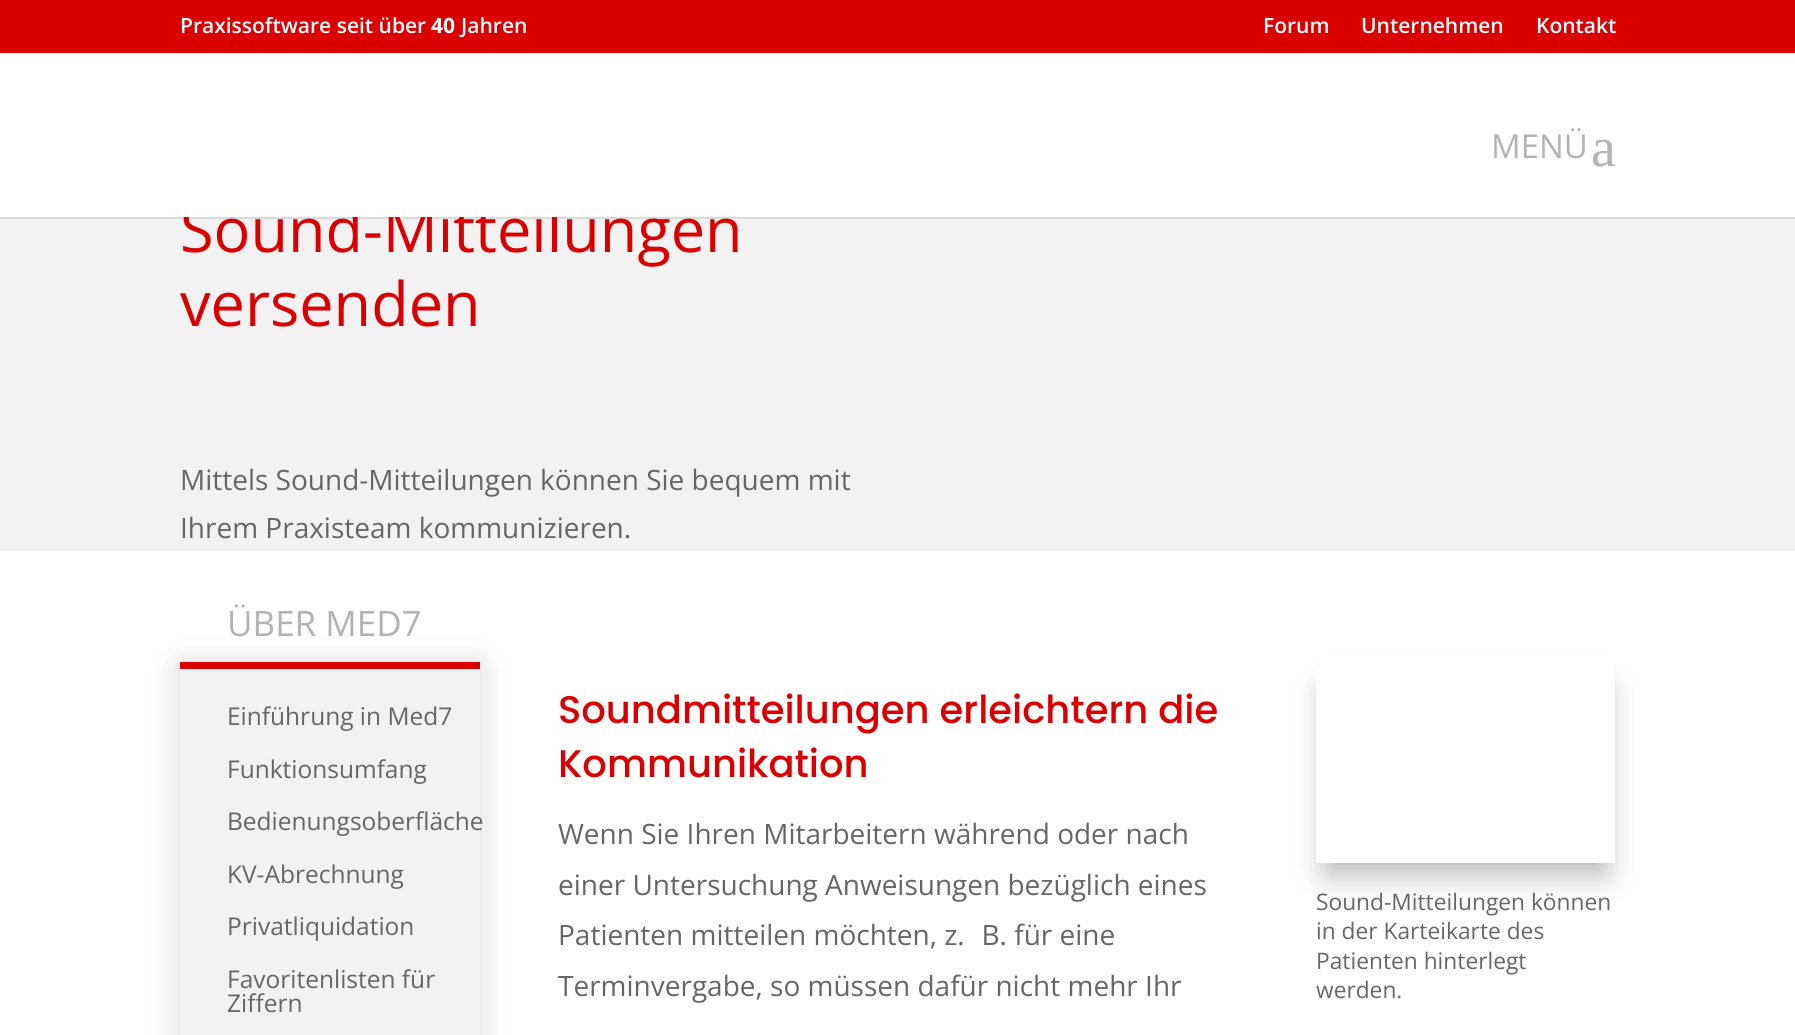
#include <cairo.h>
#include <math.h>
#include <stddef.h>

typedef struct { const char *family; double size; int italic, bold; unsigned color; } style_t;
static cairo_t *ctx;

static void ink(unsigned color) {
    cairo_set_source_rgb(ctx, (color >> 16) / 255.0, (color >> 8 & 255) / 255.0, (color & 255) / 255.0);
}

static void write(double x, double y, const char *s, const style_t *st) {
    cairo_select_font_face(ctx, st->family, st->italic ? CAIRO_FONT_SLANT_ITALIC : CAIRO_FONT_SLANT_NORMAL,
        st->bold ? CAIRO_FONT_WEIGHT_BOLD : CAIRO_FONT_WEIGHT_NORMAL);
    cairo_set_font_size(ctx, st->size);
    ink(st->color);
    cairo_move_to(ctx, x, y);
    cairo_show_text(ctx, s);
}

static void block(double x, double y, double w, double h, unsigned color) {
    ink(color);
    cairo_rectangle(ctx, x, y, w, h);
    cairo_fill(ctx);
}

static void round_path(double x, double y, double w, double h, double r) {
    cairo_new_sub_path(ctx);
    cairo_arc(ctx, x + w - r, y + h - r, r, 0, M_PI / 2);
    cairo_arc(ctx, x + r, y + h - r, r, M_PI / 2, M_PI);
    cairo_arc(ctx, x + r, y + r, r, M_PI, 1.5 * M_PI);
    cairo_arc(ctx, x + w - r, y + r, r, 1.5 * M_PI, 2 * M_PI);
    cairo_close_path(ctx);
}

static void blur_box(double x, double y, double w, double h, double r, double blur, double alpha) {
    cairo_push_group_with_content(ctx, CAIRO_CONTENT_ALPHA);
    cairo_set_operator(ctx, CAIRO_OPERATOR_SOURCE);
    for (int i = 15; i >= -15 && fmin(w, h) + blur * i / 3 > 0; i -= 2) {
        double e = blur * i / 6;
        cairo_set_source_rgba(ctx, 0, 0, 0, alpha * erfc((i - 1) / 8.5) / 2);
        round_path(x - e, y - e, w + 2 * e, h + 2 * e, fmax(0, fmin(r + e + blur * .6, fmin(w, h) / 2 + e)));
        cairo_fill(ctx);
    }
    cairo_pattern_t *soft = cairo_pop_group(ctx);
    cairo_mask(ctx, soft);
    cairo_pattern_destroy(soft);
}

static const style_t s1 = {"Open Sans SemiBold", 21, 0, 0, 0xffffff};
static const style_t s2 = {"Open Sans", 21, 0, 1, 0xffffff};
static const style_t s3 = {"Open Sans", 61.25, 0, 0, 0xda0001};
static const style_t s4 = {"Open Sans", 33, 0, 0, 0xb3b3b3};
static const style_t s5 = {"Liberation Serif", 56, 0, 0, 0xb3b3b3};
static const style_t s6 = {"Open Sans", 28, 0, 0, 0x666666};
static const style_t s7 = {"Open Sans", 35, 0, 0, 0xb3b3b3};
static const style_t s8 = {"Open Sans", 24.5, 0, 0, 0x666666};
static const style_t s9 = {"Poppins Medium", 38.5, 0, 0, 0xda0001};
static const style_t s10 = {"Open Sans", 22.75, 0, 0, 0x666666};

int main(void) {
    cairo_surface_t *surface = cairo_image_surface_create(CAIRO_FORMAT_RGB24, 1795, 1035);
    ctx = cairo_create(surface);
    cairo_font_options_t *options = cairo_font_options_create();
    cairo_font_options_set_hint_metrics(options, CAIRO_HINT_METRICS_OFF);
    cairo_font_options_set_hint_style(options, CAIRO_HINT_STYLE_NONE);
    cairo_set_font_options(ctx, options);
    cairo_set_miter_limit(ctx, 4);
    ink(0xffffff);
    cairo_paint(ctx);
    block(0, 0, 1795, 53, 0xda0001);
    write(180, 33, "Praxissoftware seit über", &s1);
    write(431, 33, "40", &s2);
    write(461, 33, "Jahren", &s1);
    write(1263, 33, "Forum", &s1);
    write(1361, 33, "Unternehmen", &s1);
    write(1536, 33, "Kontakt", &s1);
    block(0, 217, 1795, 334, 0xf2f2f2);
    cairo_set_source_rgba(ctx, 0, 0, 0, 0.1);
    cairo_new_path(ctx);
    cairo_move_to(ctx, 0, 217);
    cairo_line_to(ctx, 0, 219);
    cairo_line_to(ctx, 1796, 219);
    cairo_line_to(ctx, 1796, 54);
    cairo_line_to(ctx, 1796, 217);
    cairo_close_path(ctx);
    cairo_fill(ctx);
    write(180, 252, "Sound-Mitteilungen", &s3);
    block(183, 205, 374, 12, 0xffffff);
    write(1491, 158, "MENÜ", &s4);
    write(1591, 166, "a", &s5);
    write(180, 326, "versenden", &s3);
    write(180, 490, "Mittels Sound-Mitteilungen können Sie bequem mit", &s6);
    write(180, 538, "Ihrem Praxisteam kommunizieren.", &s6);
    write(227, 636, "ÜBER MED7", &s7);
    ink(0x000000);
    blur_box(180, 665, 300, 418, 0, 16, 0.16);
    block(180, 669, 300, 366, 0xf2f2f2);
    block(180, 662, 300, 7, 0xd80002);
    write(227, 725, "Einführung in Med7", &s8);
    write(227, 778, "Funktionsumfang", &s8);
    write(227, 830, "Bedienungsoberfläche", &s8);
    write(227, 883, "KV-Abrechnung", &s8);
    write(227, 935, "Privatliquidation", &s8);
    write(227, 988, "Favoritenlisten für", &s8);
    write(227, 1012, "Ziffern", &s8);
    write(558, 723, "Soundmitteilungen erleichtern die", &s9);
    write(558, 777, "Kommunikation", &s9);
    write(558, 844, "Wenn Sie Ihren Mitarbeitern während oder nach", &s6);
    write(558, 895, "einer Untersuchung Anweisungen bezüglich eines", &s6);
    write(558, 945, "Patienten mitteilen möchten, z. B. für eine", &s6);
    write(558, 996, "Terminvergabe, so müssen dafür nicht mehr Ihr", &s6);
    cairo_save(ctx);
    cairo_set_fill_rule(ctx, CAIRO_FILL_RULE_EVEN_ODD);
    cairo_new_path(ctx);
    cairo_move_to(ctx, 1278, 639);
    cairo_line_to(ctx, 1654, 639);
    cairo_line_to(ctx, 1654, 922);
    cairo_line_to(ctx, 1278, 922);
    cairo_close_path(ctx);
    cairo_move_to(ctx, 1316, 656);
    cairo_line_to(ctx, 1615, 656);
    cairo_line_to(ctx, 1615, 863);
    cairo_line_to(ctx, 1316, 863);
    cairo_close_path(ctx);
    cairo_clip(ctx);
    ink(0x000000);
    blur_box(1327, 688, 278, 185, 0, 16, 0.3);
    cairo_restore(ctx);
    write(1316, 910, "Sound-Mitteilungen können", &s10);
    write(1316, 939, "in der Karteikarte des", &s10);
    write(1316, 969, "Patienten hinterlegt", &s10);
    write(1316, 998, "werden.", &s10);
    cairo_surface_write_to_png(surface, "screenshot.png");
    cairo_font_options_destroy(options);
    cairo_destroy(ctx);
    cairo_surface_destroy(surface);
    return 0;
}
